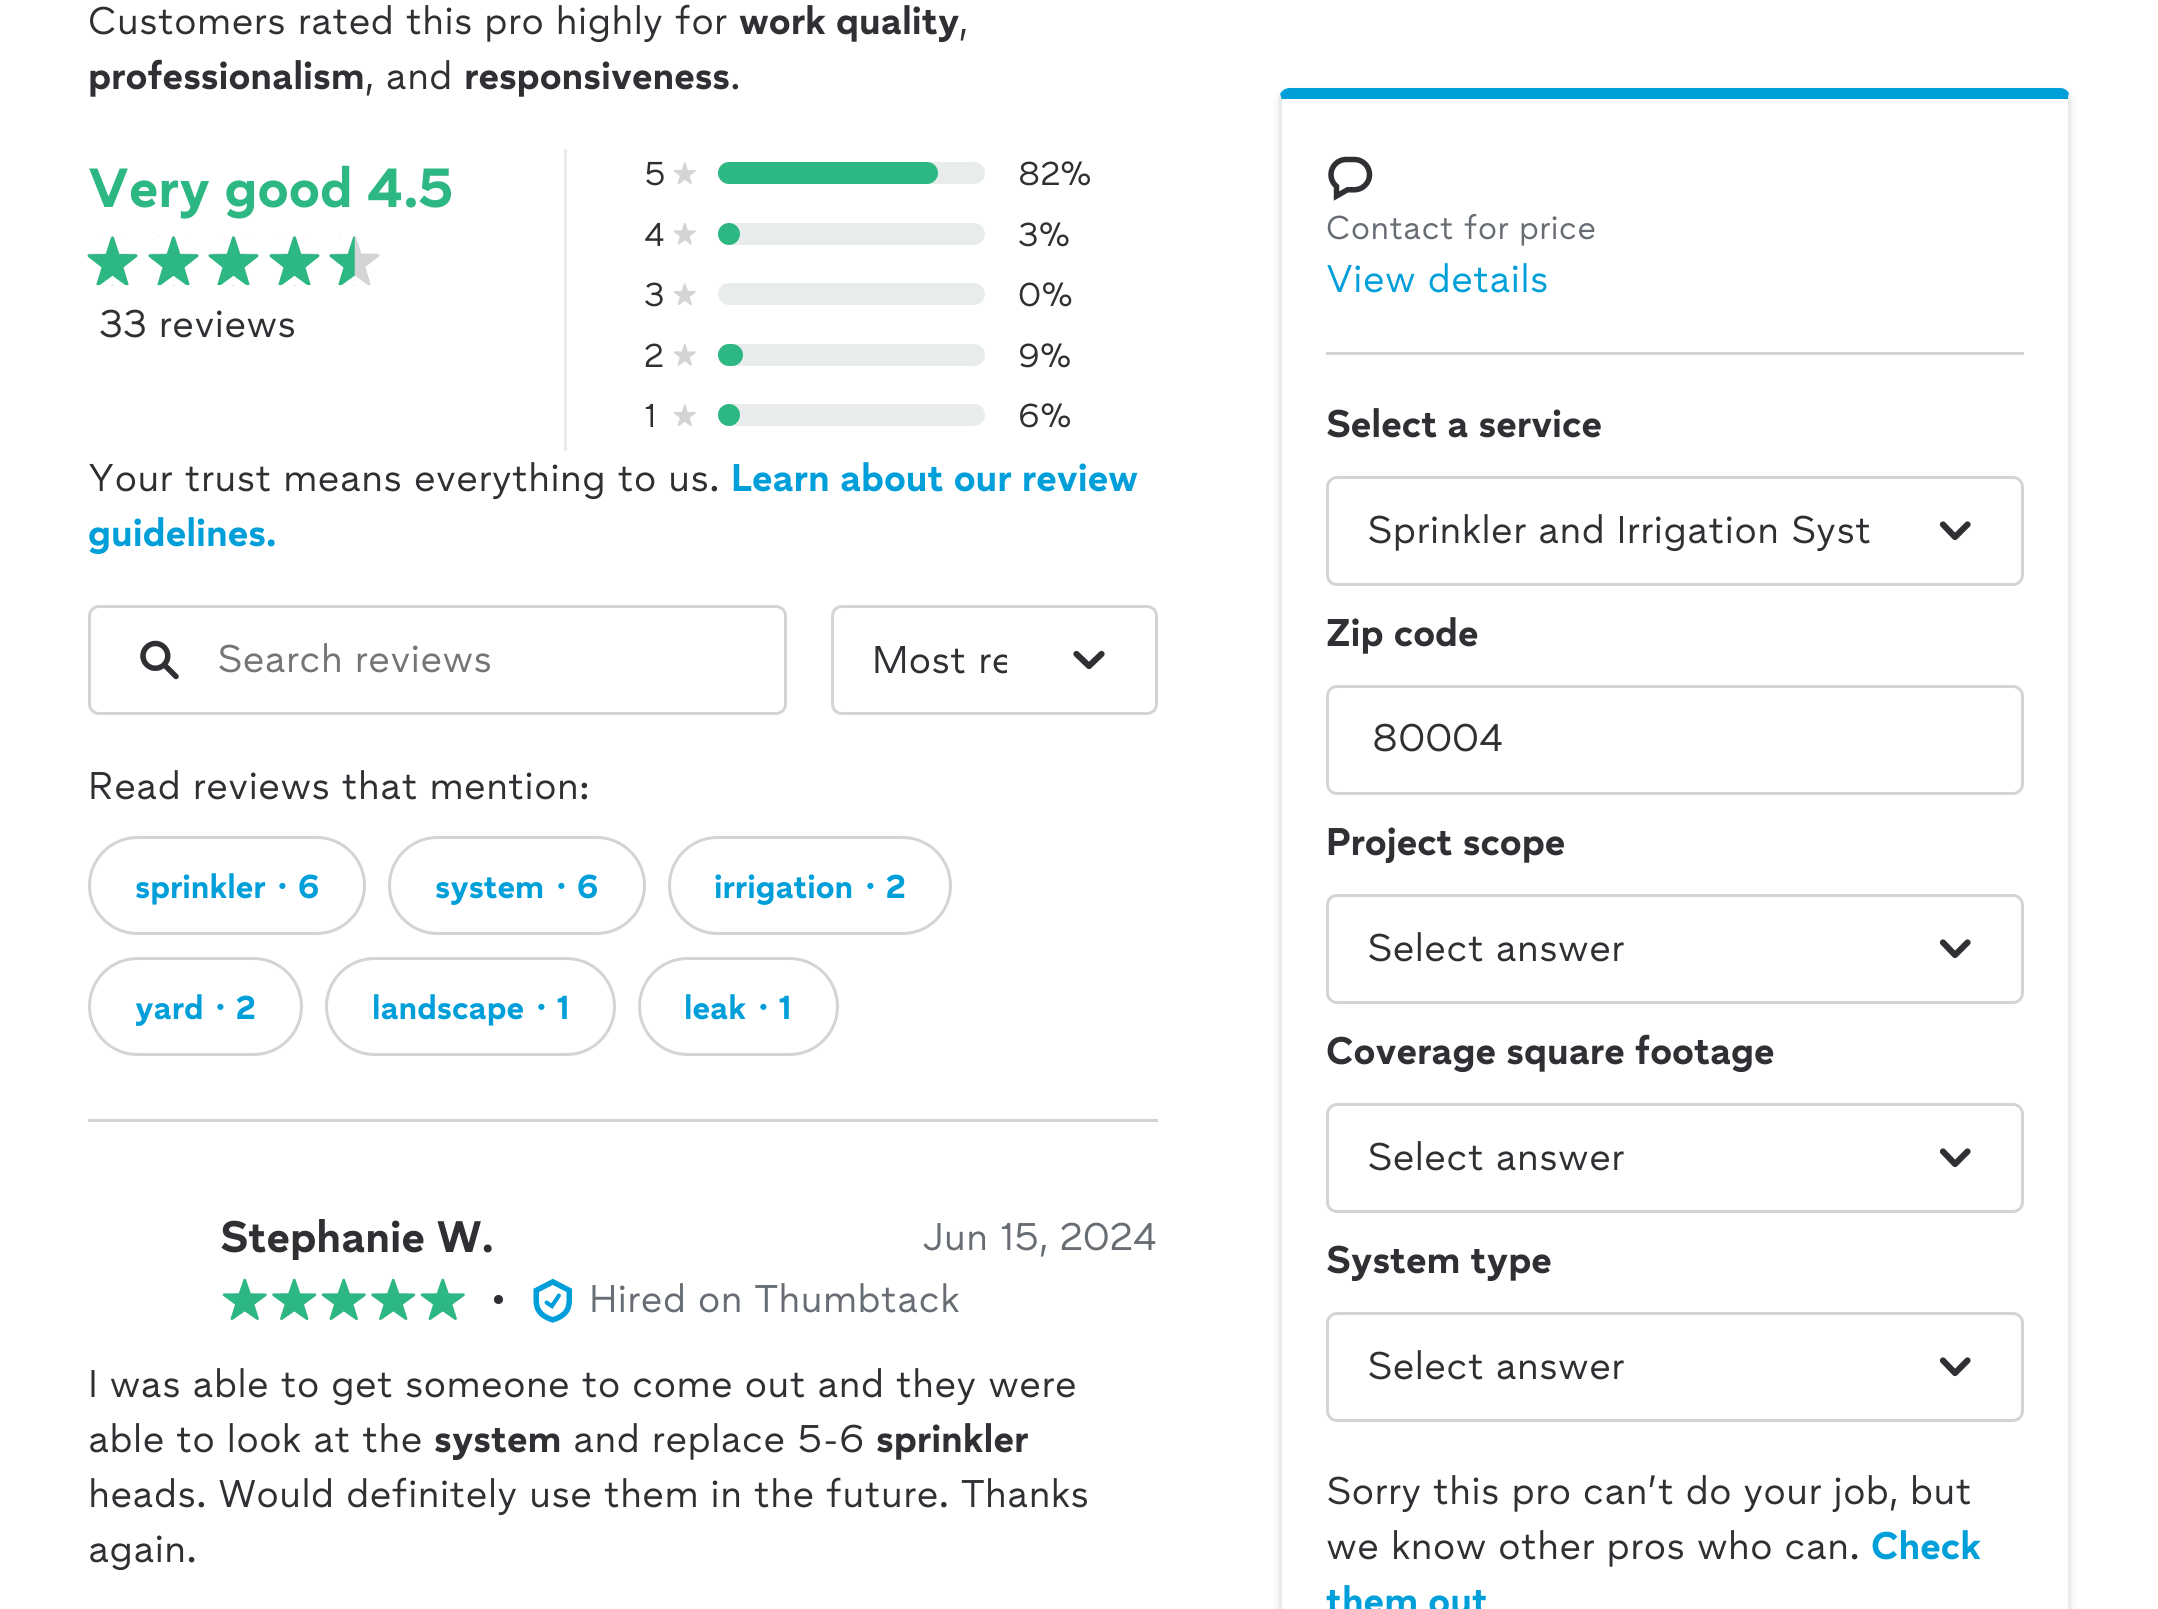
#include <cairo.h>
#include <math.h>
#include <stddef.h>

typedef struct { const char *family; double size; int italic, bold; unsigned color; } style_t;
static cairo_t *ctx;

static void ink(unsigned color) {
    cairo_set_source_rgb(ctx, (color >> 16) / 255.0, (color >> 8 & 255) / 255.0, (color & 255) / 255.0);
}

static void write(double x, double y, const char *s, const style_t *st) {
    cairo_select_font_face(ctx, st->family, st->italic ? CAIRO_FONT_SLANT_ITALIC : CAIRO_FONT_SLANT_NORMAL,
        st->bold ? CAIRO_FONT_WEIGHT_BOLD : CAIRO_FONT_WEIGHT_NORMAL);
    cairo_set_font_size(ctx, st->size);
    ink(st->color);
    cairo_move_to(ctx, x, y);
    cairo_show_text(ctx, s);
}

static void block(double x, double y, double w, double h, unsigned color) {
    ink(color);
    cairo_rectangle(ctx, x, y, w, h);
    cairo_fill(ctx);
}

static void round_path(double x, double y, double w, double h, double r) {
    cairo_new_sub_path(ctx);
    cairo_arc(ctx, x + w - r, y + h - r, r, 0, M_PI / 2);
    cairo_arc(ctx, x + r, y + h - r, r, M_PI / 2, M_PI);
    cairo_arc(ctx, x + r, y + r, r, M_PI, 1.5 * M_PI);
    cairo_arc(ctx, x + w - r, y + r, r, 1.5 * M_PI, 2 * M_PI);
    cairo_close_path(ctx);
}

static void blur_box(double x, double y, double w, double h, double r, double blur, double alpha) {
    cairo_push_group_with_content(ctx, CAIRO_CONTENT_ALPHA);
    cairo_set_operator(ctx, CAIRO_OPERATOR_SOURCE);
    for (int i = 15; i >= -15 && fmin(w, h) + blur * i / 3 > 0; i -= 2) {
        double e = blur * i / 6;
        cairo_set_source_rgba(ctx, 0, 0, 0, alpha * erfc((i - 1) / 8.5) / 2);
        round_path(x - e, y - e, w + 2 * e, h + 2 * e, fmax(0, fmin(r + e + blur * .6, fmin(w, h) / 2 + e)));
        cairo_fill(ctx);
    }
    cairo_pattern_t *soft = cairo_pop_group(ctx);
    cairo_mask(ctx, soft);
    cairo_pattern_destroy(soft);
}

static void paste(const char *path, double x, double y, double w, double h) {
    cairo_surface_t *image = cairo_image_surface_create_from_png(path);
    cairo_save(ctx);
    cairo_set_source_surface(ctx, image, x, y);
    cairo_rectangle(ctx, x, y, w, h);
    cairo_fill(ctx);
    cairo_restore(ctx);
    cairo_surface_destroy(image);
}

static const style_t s1 = {"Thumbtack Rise", 38.5, 0, 0, 0x2f3033};
static const style_t s2 = {"Thumbtack Rise", 38.5, 0, 1, 0x2f3033};
static const style_t s3 = {"Thumbtack Rise", 55, 0, 1, 0x2db783};
static const style_t s4 = {"Thumbtack Rise", 33, 0, 0, 0x2f3033};
static const style_t s5 = {"Thumbtack Rise", 38.5, 0, 1, 0x009fd9};
static const style_t s6 = {"Thumbtack Rise", 38.5, 0, 0, 0x757575};
static const style_t s7 = {"Thumbtack Rise", 33, 0, 1, 0x009fd9};
static const style_t s8 = {"WenQuanYi Zen Hei", 33, 0, 1, 0x009fd9};
static const style_t s9 = {"Thumbtack Rise", 44, 0, 1, 0x2f3033};
static const style_t s10 = {"Thumbtack Rise", 38.5, 0, 0, 0x676d73};
static const style_t s11 = {"Thumbtack Rise", 44, 0, 0, 0x2f3033};
static const style_t s12 = {"Thumbtack Rise", 33, 0, 0, 0x676d73};
static const style_t s13 = {"Thumbtack Rise", 38.5, 0, 0, 0x009fd9};

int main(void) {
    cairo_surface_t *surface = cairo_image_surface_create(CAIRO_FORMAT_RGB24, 2158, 1609);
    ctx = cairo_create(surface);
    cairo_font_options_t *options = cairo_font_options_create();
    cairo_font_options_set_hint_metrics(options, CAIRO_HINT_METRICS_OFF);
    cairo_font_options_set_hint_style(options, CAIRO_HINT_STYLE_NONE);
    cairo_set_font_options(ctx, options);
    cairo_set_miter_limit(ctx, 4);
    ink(0xffffff);
    cairo_paint(ctx);
    write(88, 34, "Customers rated this pro highly for", &s1);
    write(739, 34, "work quality", &s2);
    write(959, 34, ",", &s1);
    write(88, 89, "professionalism", &s2);
    write(365, 89, ", and", &s1);
    write(464, 89, "responsiveness", &s2);
    write(730, 89, ".", &s1);
    block(564, 149, 3, 302, 0xe9eced);
    write(88, 207, "Very good 4.5", &s3);
    paste("pic1.png", 87, 236, 293, 50);
    paste("pic2.png", 87, 236, 268, 50);
    write(99, 337, "33 reviews", &s1);
    write(644, 185, "5", &s4);
    paste("pic3.png", 674, 162, 22, 22);
    ink(0xe9eced);
    round_path(718, 162, 267, 22, 11);
    cairo_fill(ctx);
    ink(0x2db783);
    round_path(718, 162, 220, 22, 11);
    cairo_fill(ctx);
    write(1018, 185, "82%", &s4);
    write(644, 246, "4", &s4);
    paste("pic4.png", 674, 223, 22, 22);
    ink(0xe9eced);
    round_path(718, 223, 267, 22, 11);
    cairo_fill(ctx);
    ink(0x2db783);
    cairo_arc(ctx, 729, 234, 11, 0, 2 * M_PI);
    cairo_fill(ctx);
    write(1018, 246, "3%", &s4);
    write(644, 306, "3", &s4);
    paste("pic3.png", 674, 283, 22, 22);
    ink(0xe9eced);
    round_path(718, 283, 267, 22, 11);
    cairo_fill(ctx);
    write(1018, 306, "0%", &s4);
    write(644, 367, "2", &s4);
    paste("pic4.png", 674, 344, 22, 22);
    ink(0xe9eced);
    round_path(718, 344, 267, 22, 11);
    cairo_fill(ctx);
    ink(0x2db783);
    round_path(718, 344, 25, 22, 11);
    cairo_fill(ctx);
    write(1018, 367, "9%", &s4);
    write(644, 427, "1", &s4);
    paste("pic3.png", 674, 404, 22, 22);
    ink(0xe9eced);
    round_path(718, 404, 267, 22, 11);
    cairo_fill(ctx);
    ink(0x2db783);
    cairo_arc(ctx, 729, 415, 11, 0, 2 * M_PI);
    cairo_fill(ctx);
    write(1018, 427, "6%", &s4);
    write(88, 491, "Your trust means everything to us.", &s1);
    write(731, 491, "Learn about our review", &s5);
    write(88, 546, "guidelines.", &s5);
    round_path(89.5, 606.5, 696, 107, 9.5);
    ink(0xd3d4d5);
    cairo_set_line_width(ctx, 3);
    cairo_stroke(ctx);
    paste("pic5.png", 140, 640, 39, 40);
    write(217, 672, "Search reviews", &s6);
    round_path(832.5, 606.5, 324, 107, 9.5);
    ink(0xd3d4d5);
    cairo_stroke(ctx);
    cairo_save(ctx);
    cairo_rectangle(ctx, 872, 638, 135, 47);
    cairo_clip(ctx);
    write(872, 673, "Most re", &s1);
    cairo_restore(ctx);
    cairo_new_path(ctx);
    cairo_move_to(ctx, 1076.5, 654);
    cairo_line_to(ctx, 1089, 666);
    cairo_line_to(ctx, 1101.5, 654);
    ink(0x2f3033);
    cairo_set_line_width(ctx, 6.2);
    cairo_set_line_cap(ctx, CAIRO_LINE_CAP_ROUND);
    cairo_set_line_join(ctx, CAIRO_LINE_JOIN_ROUND);
    cairo_stroke(ctx);
    write(88, 799, "Read reviews that mention:", &s1);
    round_path(89.5, 837.5, 275, 96, 48);
    ink(0xd3d4d5);
    cairo_set_line_width(ctx, 3);
    cairo_set_line_cap(ctx, CAIRO_LINE_CAP_BUTT);
    cairo_set_line_join(ctx, CAIRO_LINE_JOIN_MITER);
    cairo_stroke(ctx);
    write(135, 898, "sprinkler", &s7);
    write(265, 898, "・", &s8);
    write(298, 898, "6", &s7);
    round_path(389.5, 837.5, 255, 96, 48);
    ink(0xd3d4d5);
    cairo_stroke(ctx);
    write(435, 898, "system", &s7);
    write(544, 898, "・", &s8);
    write(577, 898, "6", &s7);
    round_path(669.5, 837.5, 281, 96, 48);
    ink(0xd3d4d5);
    cairo_stroke(ctx);
    write(714, 898, "irrigation", &s7);
    write(853, 898, "・", &s8);
    write(886, 898, "2", &s7);
    round_path(89.5, 958.5, 212, 96, 48);
    ink(0xd3d4d5);
    cairo_stroke(ctx);
    write(135, 1019, "yard", &s7);
    write(203, 1019, "・", &s8);
    write(236, 1019, "2", &s7);
    round_path(326.5, 958.5, 288, 96, 48);
    ink(0xd3d4d5);
    cairo_stroke(ctx);
    write(372, 1019, "landscape", &s7);
    write(524, 1019, "・", &s8);
    write(557, 1019, "1", &s7);
    round_path(639.5, 958.5, 198, 96, 48);
    ink(0xd3d4d5);
    cairo_stroke(ctx);
    write(684, 1019, "leak", &s7);
    write(746, 1019, "・", &s8);
    write(779, 1019, "1", &s7);
    block(88, 1119, 1070, 3, 0xd3d4d5);
    cairo_save(ctx);
    cairo_rectangle(ctx, 220, 1216, 693, 44);
    cairo_clip(ctx);
    write(220, 1252, "Stephanie W.", &s9);
    cairo_restore(ctx);
    write(923, 1250, "Jun 15, 2024", &s10);
    paste("pic6.png", 222, 1278, 45, 42);
    paste("pic7.png", 222, 1278, 45, 42);
    paste("pic8.png", 272, 1278, 45, 42);
    paste("pic9.png", 272, 1278, 45, 42);
    paste("pic6.png", 321, 1278, 45, 42);
    paste("pic7.png", 321, 1278, 45, 42);
    paste("pic8.png", 371, 1278, 45, 42);
    paste("pic9.png", 371, 1278, 45, 42);
    paste("pic6.png", 420, 1278, 45, 42);
    paste("pic7.png", 420, 1278, 45, 42);
    write(490, 1316, "•", &s11);
    paste("pic10.png", 533, 1278, 39, 45);
    write(589, 1312, "Hired on Thumbtack", &s10);
    write(88, 1397, "I was able to get someone to come out and they were", &s1);
    write(88, 1452, "able to look at the", &s1);
    write(434, 1452, "system", &s2);
    write(573, 1452, "and replace 5-6", &s1);
    write(876, 1452, "sprinkler", &s2);
    write(88, 1507, "heads. Would definitely use them in the future. Thanks", &s1);
    write(88, 1562, "again.", &s1);
    cairo_save(ctx);
    cairo_set_fill_rule(ctx, CAIRO_FILL_RULE_EVEN_ODD);
    cairo_new_path(ctx);
    cairo_move_to(ctx, 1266, 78);
    cairo_line_to(ctx, 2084, 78);
    cairo_line_to(ctx, 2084, 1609);
    cairo_line_to(ctx, 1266, 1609);
    cairo_close_path(ctx);
    cairo_move_to(ctx, 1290, 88);
    cairo_line_to(ctx, 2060, 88);
    cairo_curve_to(ctx, 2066, 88, 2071, 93, 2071, 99);
    cairo_line_to(ctx, 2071, 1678);
    cairo_curve_to(ctx, 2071, 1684, 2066, 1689, 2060, 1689);
    cairo_line_to(ctx, 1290, 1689);
    cairo_curve_to(ctx, 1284, 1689, 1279, 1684, 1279, 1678);
    cairo_line_to(ctx, 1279, 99);
    cairo_curve_to(ctx, 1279, 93, 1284, 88, 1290, 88);
    cairo_close_path(ctx);
    cairo_clip(ctx);
    ink(0x000000);
    blur_box(1279, 91, 792, 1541, 11, 4, 0.1);
    cairo_restore(ctx);
    ink(0x009fd9);
    cairo_new_path(ctx);
    cairo_move_to(ctx, 1290, 88);
    cairo_curve_to(ctx, 1286, 88, 1282, 90, 1280, 94);
    cairo_line_to(ctx, 1282, 101);
    cairo_line_to(ctx, 1282, 99);
    cairo_line_to(ctx, 2068, 99);
    cairo_line_to(ctx, 2069, 93);
    cairo_curve_to(ctx, 2067, 90, 2064, 88, 2060, 88);
    cairo_close_path(ctx);
    cairo_fill(ctx);
    ink(0xe9eced);
    cairo_new_path(ctx);
    cairo_move_to(ctx, 2071, 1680);
    cairo_curve_to(ctx, 2070, 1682, 2069, 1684, 2068, 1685);
    cairo_line_to(ctx, 2066, 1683);
    cairo_curve_to(ctx, 2067, 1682, 2068, 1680, 2068, 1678);
    cairo_line_to(ctx, 2068, 99);
    cairo_line_to(ctx, 2069, 93);
    cairo_line_to(ctx, 2071, 97);
    cairo_close_path(ctx);
    cairo_fill(ctx);
    cairo_new_path(ctx);
    cairo_move_to(ctx, 1280, 94);
    cairo_curve_to(ctx, 1279, 95, 1279, 97, 1279, 99);
    cairo_line_to(ctx, 1279, 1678);
    cairo_curve_to(ctx, 1279, 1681, 1280, 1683, 1282, 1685);
    cairo_line_to(ctx, 1284, 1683);
    cairo_curve_to(ctx, 1283, 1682, 1282, 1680, 1282, 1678);
    cairo_line_to(ctx, 1282, 101);
    cairo_close_path(ctx);
    cairo_fill(ctx);
    paste("pic11.png", 1328, 156, 45, 45);
    write(1326, 239, "Contact for price", &s12);
    write(1326, 292, "View details", &s13);
    block(1326, 352, 698, 3, 0xd3d4d5);
    write(1326, 437, "Select a service", &s2);
    round_path(1327.5, 477.5, 695, 107, 9.5);
    ink(0xd3d4d5);
    cairo_stroke(ctx);
    write(1367, 543, "Sprinkler and Irrigation Syst", &s1);
    cairo_new_path(ctx);
    cairo_move_to(ctx, 1943, 524.5);
    cairo_line_to(ctx, 1955, 537);
    cairo_line_to(ctx, 1967.5, 524.5);
    cairo_set_line_width(ctx, 6.2);
    cairo_set_line_cap(ctx, CAIRO_LINE_CAP_ROUND);
    cairo_set_line_join(ctx, CAIRO_LINE_JOIN_ROUND);
    cairo_stroke(ctx);
    write(1326, 646, "Zip code", &s2);
    round_path(1327.5, 686.5, 695, 107, 9.5);
    ink(0xd3d4d5);
    cairo_set_line_width(ctx, 3);
    cairo_set_line_cap(ctx, CAIRO_LINE_CAP_BUTT);
    cairo_set_line_join(ctx, CAIRO_LINE_JOIN_MITER);
    cairo_stroke(ctx);
    write(1372, 751, "80004", &s1);
    write(1326, 855, "Project scope", &s2);
    round_path(1327.5, 895.5, 695, 107, 9.5);
    ink(0xd3d4d5);
    cairo_stroke(ctx);
    write(1367, 961, "Select answer", &s1);
    cairo_new_path(ctx);
    cairo_move_to(ctx, 1943, 942.5);
    cairo_line_to(ctx, 1955, 955);
    cairo_line_to(ctx, 1967.5, 942.5);
    cairo_set_line_width(ctx, 6.2);
    cairo_set_line_cap(ctx, CAIRO_LINE_CAP_ROUND);
    cairo_set_line_join(ctx, CAIRO_LINE_JOIN_ROUND);
    cairo_stroke(ctx);
    write(1326, 1064, "Coverage square footage", &s2);
    round_path(1327.5, 1104.5, 695, 107, 9.5);
    ink(0xd3d4d5);
    cairo_set_line_width(ctx, 3);
    cairo_set_line_cap(ctx, CAIRO_LINE_CAP_BUTT);
    cairo_set_line_join(ctx, CAIRO_LINE_JOIN_MITER);
    cairo_stroke(ctx);
    write(1367, 1170, "Select answer", &s1);
    cairo_new_path(ctx);
    cairo_move_to(ctx, 1943, 1151.5);
    cairo_line_to(ctx, 1955, 1164);
    cairo_line_to(ctx, 1967.5, 1151.5);
    cairo_set_line_width(ctx, 6.2);
    cairo_set_line_cap(ctx, CAIRO_LINE_CAP_ROUND);
    cairo_set_line_join(ctx, CAIRO_LINE_JOIN_ROUND);
    cairo_stroke(ctx);
    write(1326, 1273, "System type", &s2);
    round_path(1327.5, 1313.5, 695, 107, 9.5);
    ink(0xd3d4d5);
    cairo_set_line_width(ctx, 3);
    cairo_set_line_cap(ctx, CAIRO_LINE_CAP_BUTT);
    cairo_set_line_join(ctx, CAIRO_LINE_JOIN_MITER);
    cairo_stroke(ctx);
    write(1367, 1379, "Select answer", &s1);
    cairo_new_path(ctx);
    cairo_move_to(ctx, 1943, 1360.5);
    cairo_line_to(ctx, 1955, 1373);
    cairo_line_to(ctx, 1967.5, 1360.5);
    cairo_set_line_width(ctx, 6.2);
    cairo_set_line_cap(ctx, CAIRO_LINE_CAP_ROUND);
    cairo_set_line_join(ctx, CAIRO_LINE_JOIN_ROUND);
    cairo_stroke(ctx);
    write(1326, 1504, "Sorry this pro can’t do your job, but", &s1);
    write(1326, 1559, "we know other pros who can.", &s1);
    write(1871, 1559, "Check", &s5);
    write(1326, 1614, "them out", &s5);
    cairo_surface_write_to_png(surface, "screenshot.png");
    cairo_font_options_destroy(options);
    cairo_destroy(ctx);
    cairo_surface_destroy(surface);
    return 0;
}
